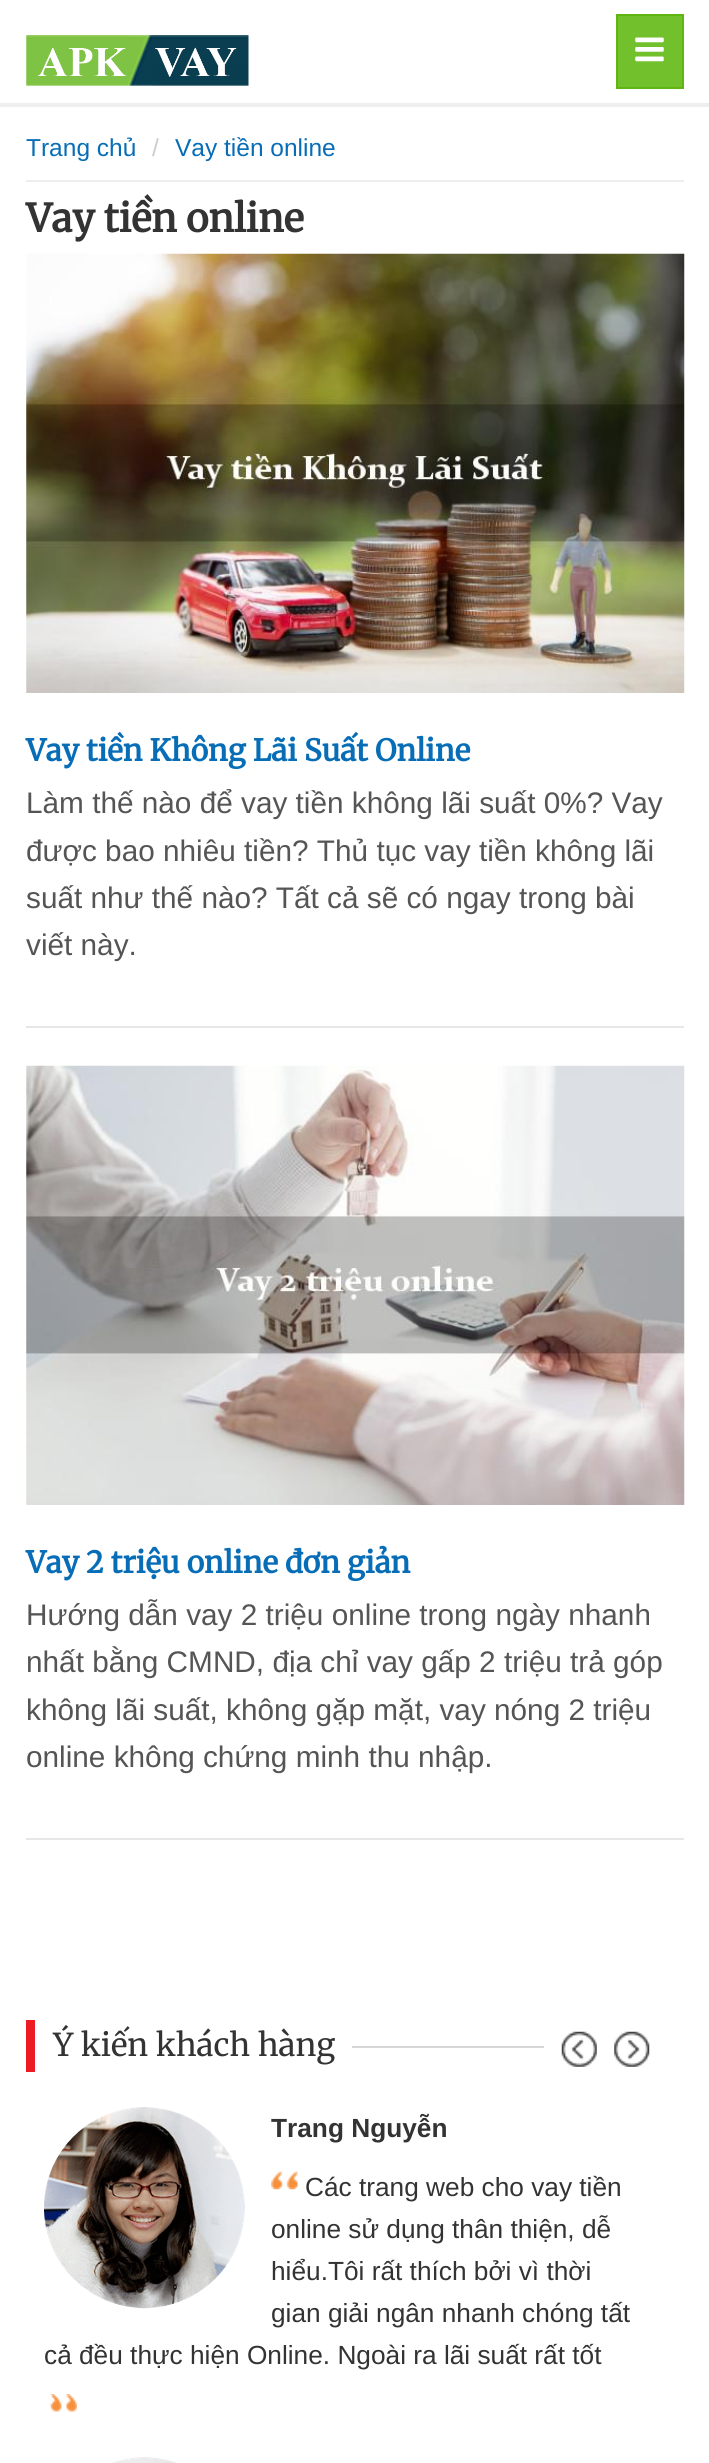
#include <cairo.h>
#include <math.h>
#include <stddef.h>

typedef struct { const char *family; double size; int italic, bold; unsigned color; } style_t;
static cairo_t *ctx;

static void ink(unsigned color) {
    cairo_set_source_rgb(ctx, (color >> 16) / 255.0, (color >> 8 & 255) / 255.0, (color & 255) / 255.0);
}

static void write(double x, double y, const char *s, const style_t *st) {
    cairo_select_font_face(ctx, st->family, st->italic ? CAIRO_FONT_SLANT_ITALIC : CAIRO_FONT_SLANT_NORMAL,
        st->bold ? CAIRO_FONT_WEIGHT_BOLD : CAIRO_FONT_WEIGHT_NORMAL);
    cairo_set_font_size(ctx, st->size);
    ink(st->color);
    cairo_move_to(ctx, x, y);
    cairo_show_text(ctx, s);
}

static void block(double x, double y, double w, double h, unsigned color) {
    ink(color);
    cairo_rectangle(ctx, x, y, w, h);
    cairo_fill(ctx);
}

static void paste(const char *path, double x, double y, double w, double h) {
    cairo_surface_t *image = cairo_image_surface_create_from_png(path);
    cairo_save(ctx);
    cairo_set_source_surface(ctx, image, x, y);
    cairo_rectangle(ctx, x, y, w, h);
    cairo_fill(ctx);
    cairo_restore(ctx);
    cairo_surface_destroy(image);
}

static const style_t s1 = {"Liberation Sans", 24.5, 0, 0, 0x076db6};
static const style_t s2 = {"Liberation Sans", 24.5, 0, 0, 0xcccccc};
static const style_t s3 = {"Merriweather", 38.5, 0, 1, 0x333333};
static const style_t s4 = {"Merriweather", 29.75, 0, 1, 0x076db6};
static const style_t s5 = {"Liberation Sans", 29.75, 0, 0, 0x555555};
static const style_t s6 = {"Merriweather Light", 31.5, 0, 0, 0x333333};
static const style_t s7 = {"Liberation Sans", 26.25, 0, 1, 0x333333};
static const style_t s8 = {"Liberation Sans", 26.25, 0, 0, 0x333333};

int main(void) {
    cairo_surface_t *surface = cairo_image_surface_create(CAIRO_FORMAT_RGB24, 709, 2463);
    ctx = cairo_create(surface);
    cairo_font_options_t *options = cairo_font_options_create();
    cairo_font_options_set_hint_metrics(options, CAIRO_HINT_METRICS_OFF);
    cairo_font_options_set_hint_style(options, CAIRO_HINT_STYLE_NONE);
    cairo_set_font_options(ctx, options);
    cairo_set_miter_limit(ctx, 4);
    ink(0xffffff);
    cairo_paint(ctx);
    block(0, 103, 709, 4, 0xeeeeee);
    paste("pic1.png", 26, 35, 223, 51);
    ink(0x72c02c);
    cairo_rectangle(ctx, 617, 15, 66, 73);
    cairo_fill_preserve(ctx);
    ink(0x5fb611);
    cairo_stroke(ctx);
    paste("pic2.png", 635, 37, 29, 25);
    block(26, 180, 658, 2, 0xeeeeee);
    write(26, 156, "Trang chủ", &s1);
    write(152, 156, "/", &s2);
    write(175, 156, "Vay tiền online", &s1);
    write(26, 232, "Vay tiền online", &s3);
    block(26, 1026, 658, 2, 0xe7e7e7);
    paste("pic3.png", 26, 253, 659, 440);
    write(26, 761, "Vay tiền Không Lãi Suất Online", &s4);
    write(26, 813, "Làm thế nào để vay tiền không lãi suất 0%? Vay", &s5);
    write(26, 861, "được bao nhiêu tiền? Thủ tục vay tiền không lãi", &s5);
    write(26, 908, "suất như thế nào? Tất cả sẽ có ngay trong bài", &s5);
    write(26, 955, "viết này.", &s5);
    block(26, 1838, 658, 2, 0xe7e7e7);
    paste("pic4.png", 26, 1065, 659, 440);
    write(26, 1573, "Vay 2 triệu online đơn giản", &s4);
    write(26, 1625, "Hướng dẫn vay 2 triệu online trong ngày nhanh", &s5);
    write(26, 1672, "nhất bằng CMND, địa chỉ vay gấp 2 triệu trả góp", &s5);
    write(26, 1720, "không lãi suất, không gặp mặt, vay nóng 2 triệu", &s5);
    write(26, 1767, "online không chứng minh thu nhập.", &s5);
    block(26, 2020, 9, 52, 0xed1c24);
    write(53, 2056, "Ý kiến khách hàng", &s6);
    block(352, 2046, 192, 2, 0xd7d7d7);
    paste("pic5.png", 561, 2031, 36, 36);
    paste("pic6.png", 614, 2031, 36, 36);
    paste("pic7.png", 44, 2107, 201, 202);
    write(271, 2137, "Trang Nguyễn", &s7);
    paste("pic8.png", 271, 2171, 27, 19);
    write(305, 2196, "Các trang web cho vay tiền", &s8);
    write(271, 2238, "online sử dụng thân thiện, dễ", &s8);
    write(271, 2280, "hiểu.Tôi rất thích bởi vì thời", &s8);
    write(271, 2322, "gian giải ngân nhanh chóng tất", &s8);
    write(44, 2364, "cả đều thực hiện Online. Ngoài ra lãi suất rất tốt", &s8);
    paste("pic9.png", 50, 2394, 27, 18);
    paste("pic10.png", 112, 2457, 65, 6);
    cairo_surface_write_to_png(surface, "screenshot.png");
    cairo_font_options_destroy(options);
    cairo_destroy(ctx);
    cairo_surface_destroy(surface);
    return 0;
}
